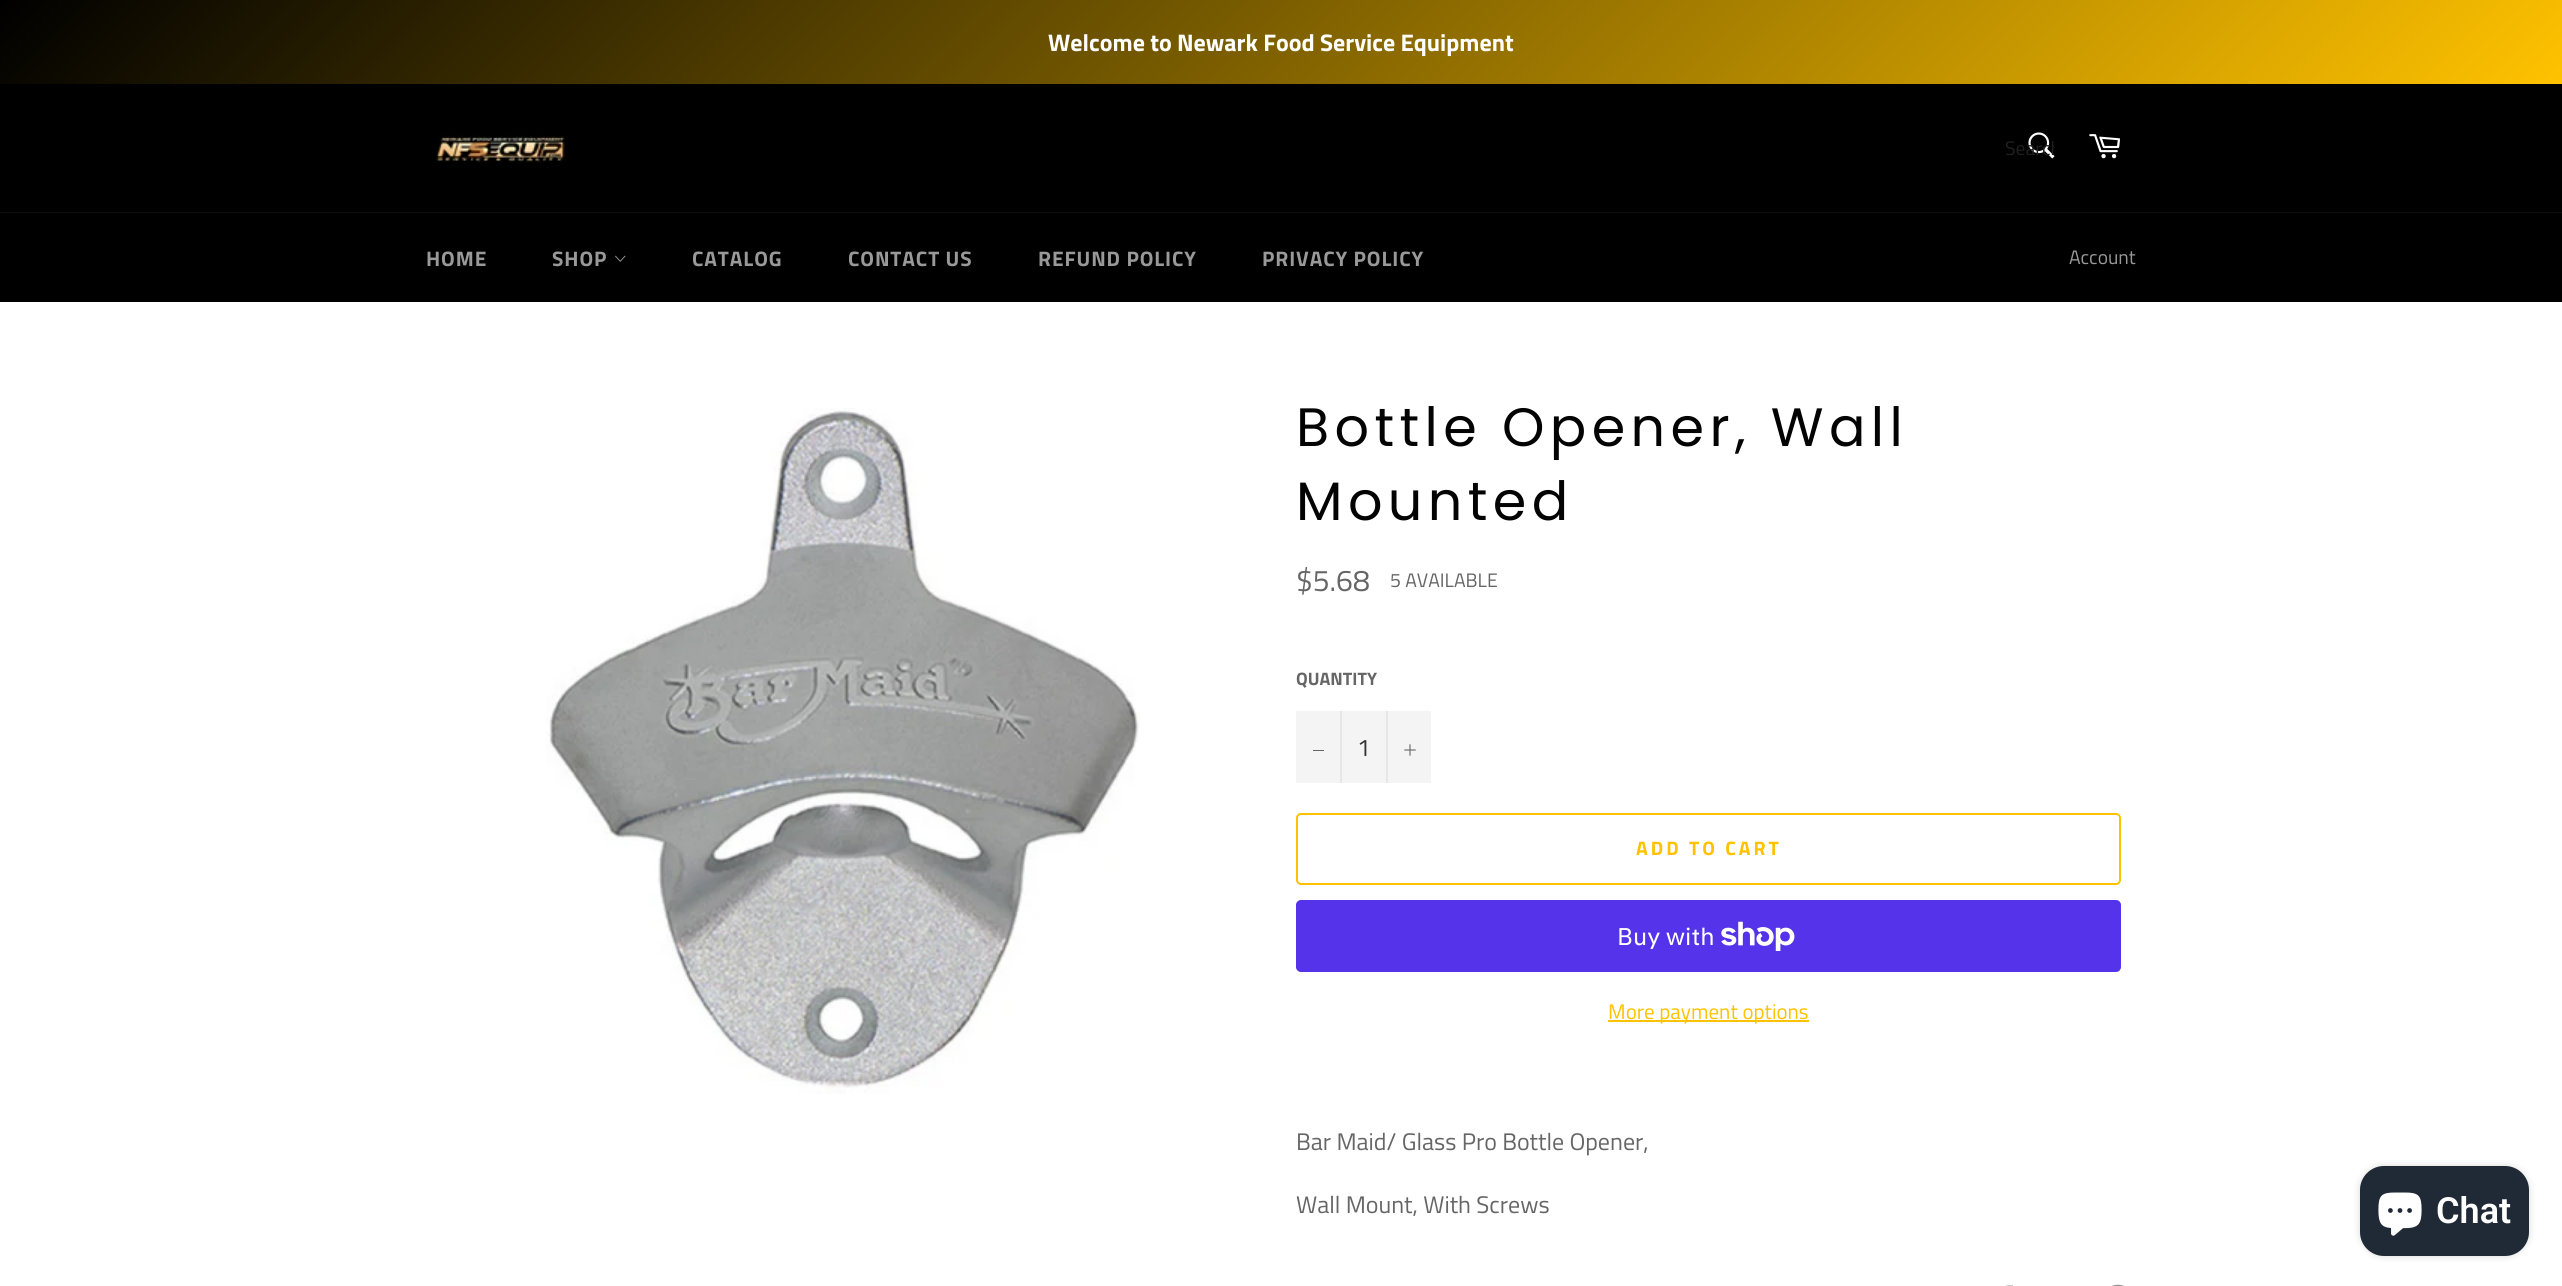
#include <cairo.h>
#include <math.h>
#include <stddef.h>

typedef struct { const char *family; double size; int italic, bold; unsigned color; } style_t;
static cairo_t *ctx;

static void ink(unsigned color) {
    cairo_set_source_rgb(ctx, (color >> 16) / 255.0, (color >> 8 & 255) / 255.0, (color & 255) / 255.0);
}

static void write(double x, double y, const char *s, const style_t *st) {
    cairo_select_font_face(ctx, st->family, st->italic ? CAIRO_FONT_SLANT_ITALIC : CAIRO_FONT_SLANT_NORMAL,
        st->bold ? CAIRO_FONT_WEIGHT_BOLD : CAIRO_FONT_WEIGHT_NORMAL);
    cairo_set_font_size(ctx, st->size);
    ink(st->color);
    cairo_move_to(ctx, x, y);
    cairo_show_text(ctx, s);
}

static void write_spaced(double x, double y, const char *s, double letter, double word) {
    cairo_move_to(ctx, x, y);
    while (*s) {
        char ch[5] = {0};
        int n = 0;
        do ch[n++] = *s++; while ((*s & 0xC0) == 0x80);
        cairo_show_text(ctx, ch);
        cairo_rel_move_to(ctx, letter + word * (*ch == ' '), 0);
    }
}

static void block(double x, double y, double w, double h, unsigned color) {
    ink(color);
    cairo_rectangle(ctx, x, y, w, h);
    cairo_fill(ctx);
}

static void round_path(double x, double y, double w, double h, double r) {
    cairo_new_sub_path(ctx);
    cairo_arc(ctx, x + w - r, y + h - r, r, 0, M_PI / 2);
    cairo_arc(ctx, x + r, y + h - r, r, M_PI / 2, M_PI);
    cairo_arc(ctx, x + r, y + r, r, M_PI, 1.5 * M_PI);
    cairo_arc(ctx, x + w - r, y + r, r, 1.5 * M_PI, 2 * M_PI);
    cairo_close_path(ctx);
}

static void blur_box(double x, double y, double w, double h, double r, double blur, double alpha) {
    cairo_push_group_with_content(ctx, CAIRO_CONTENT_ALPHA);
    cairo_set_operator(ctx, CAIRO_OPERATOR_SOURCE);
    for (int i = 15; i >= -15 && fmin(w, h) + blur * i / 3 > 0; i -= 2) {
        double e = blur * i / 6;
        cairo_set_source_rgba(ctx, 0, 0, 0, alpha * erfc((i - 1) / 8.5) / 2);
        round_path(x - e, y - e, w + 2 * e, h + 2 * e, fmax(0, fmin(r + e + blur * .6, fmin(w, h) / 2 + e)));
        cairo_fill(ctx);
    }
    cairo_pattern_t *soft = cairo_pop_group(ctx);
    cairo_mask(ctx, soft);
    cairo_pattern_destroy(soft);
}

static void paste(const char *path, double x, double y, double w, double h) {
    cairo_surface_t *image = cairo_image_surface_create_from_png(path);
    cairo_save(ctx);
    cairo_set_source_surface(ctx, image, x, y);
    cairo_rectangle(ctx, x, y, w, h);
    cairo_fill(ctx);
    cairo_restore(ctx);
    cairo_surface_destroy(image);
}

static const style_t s1 = {"Titillium Web", 24, 0, 1, 0xffffff};
static const style_t s2 = {"Titillium Web", 19.5, 0, 0, 0x1f1f1f};
static const style_t s3 = {"Titillium Web", 19.5, 0, 0, 0x999999};
static const style_t s4 = {"Titillium Web", 30, 0, 0, 0x666666};
static const style_t s5 = {"Titillium Web", 19.5, 0, 0, 0x666666};
static const style_t s6 = {"Titillium Web", 18, 0, 1, 0x666666};
static const style_t s7 = {"Titillium Web", 24, 0, 0, 0x333333};
static const style_t s8 = {"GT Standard", 24, 0, 0, 0xffffff};
static const style_t s9 = {"Titillium Web", 21, 0, 0, 0xffc200};
static const style_t s10 = {"Titillium Web", 24, 0, 0, 0x666666};
static const style_t s11 = {"Roboto SemiBold", 36, 0, 0, 0xffffff};

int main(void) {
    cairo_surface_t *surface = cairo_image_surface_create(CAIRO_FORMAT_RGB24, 2562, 1286);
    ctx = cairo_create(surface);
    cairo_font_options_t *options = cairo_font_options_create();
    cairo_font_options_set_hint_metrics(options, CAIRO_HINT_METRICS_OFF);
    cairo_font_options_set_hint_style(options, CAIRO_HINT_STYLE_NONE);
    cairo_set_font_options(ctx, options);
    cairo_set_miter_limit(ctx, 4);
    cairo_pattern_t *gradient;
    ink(0xffffff);
    cairo_paint(ctx);
    gradient = cairo_pattern_create_linear(619, -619, 1943, 704);
    cairo_pattern_add_color_stop_rgba(gradient, 0, 0, 0, 0, 1);
    cairo_pattern_add_color_stop_rgba(gradient, 1, 1, 0.761, 0, 1);
    cairo_set_source(ctx, gradient);
    cairo_pattern_destroy(gradient);
    cairo_rectangle(ctx, 0, 0, 2562, 84);
    cairo_fill(ctx);
    write(1048, 51, "Welcome to Newark Food Service Equipment", &s1);
    block(0, 84, 2562, 128, 0x000000);
    paste("pic1.png", 436, 134, 131, 30);
    paste("pic2.png", 2028, 132, 27, 27);
    cairo_save(ctx);
    cairo_rectangle(ctx, 2006, 134, 48, 30);
    cairo_clip(ctx);
    write(2005, 155, "Search", &s2);
    cairo_restore(ctx);
    paste("pic3.png", 2089, 134, 31, 25);
    block(0, 212, 2562, 1, 0x0d0d0d);
    block(0, 213, 2562, 89, 0x000000);
    cairo_set_font_size(ctx, 21);
    ink(0x999999);
    write_spaced(426, 266, "HOME", 0.9, 0);
    write_spaced(552, 266, "SHOP", 0.9, 0);
    paste("pic4.png", 615, 255, 11, 7);
    write_spaced(692, 266, "CATALOG", 0.9, 0);
    write_spaced(848, 266, "CONTACT US", 0.9, 0);
    write_spaced(1038, 266, "REFUND POLICY", 0.9, 0);
    write_spaced(1262, 266, "PRIVACY POLICY", 0.9, 0);
    write(2069, 264, "Account", &s3);
    paste("pic5.png", 546, 408, 594, 686);
    cairo_select_font_face(ctx, "Poppins", CAIRO_FONT_SLANT_NORMAL, CAIRO_FONT_WEIGHT_NORMAL);
    cairo_set_font_size(ctx, 54);
    ink(0x030303);
    write_spaced(1296, 446, "Bottle Opener, Wall", 5.4, 0);
    write_spaced(1296, 520, "Mounted", 5.4, 0);
    write(1296, 591, "$5.68", &s4);
    write(1390, 587, "5 AVAILABLE", &s5);
    write(1296, 685, "QUANTITY", &s6);
    block(1296, 711, 135, 72, 0xf4f4f4);
    block(1340, 711, 2, 72, 0xe7e7e7);
    block(1313, 750, 11, 1, 0x666666);
    write(1357, 756, "1", &s7);
    block(1386, 711, 2, 72, 0xe7e7e7);
    paste("pic6.png", 1404, 744, 12, 12);
    round_path(1297, 814, 823, 70, 4);
    ink(0xffc200);
    cairo_stroke(ctx);
    cairo_select_font_face(ctx, "Titillium Web", CAIRO_FONT_SLANT_NORMAL, CAIRO_FONT_WEIGHT_BOLD);
    cairo_set_font_size(ctx, 19.5);
    write_spaced(1636, 855, "ADD TO CART", 3, 0);
    ink(0x5433eb);
    round_path(1296, 900, 825, 72, 5);
    cairo_fill(ctx);
    write(1617, 945, "Buy with", &s8);
    paste("pic7.png", 1721, 921, 74, 30);
    block(1608, 1020, 201, 2, 0xffc200);
    write(1608, 1019, "More payment options", &s9);
    write(1296, 1150, "Bar Maid/ Glass Pro Bottle Opener,", &s10);
    write(1296, 1213, "Wall Mount, With Screws", &s10);
    paste("pic8.png", 2005, 1285, 8, 1);
    paste("pic9.png", 2112, 1284, 12, 2);
    ink(0x000000);
    blur_box(2360, 1166, 169, 90, 24, 4, 0.15);
    ink(0x202a36);
    round_path(2360, 1166, 169, 90, 24);
    cairo_fill(ctx);
    paste("pic10.png", 2378, 1192, 44, 44);
    write(2436, 1223, "Chat", &s11);
    cairo_surface_write_to_png(surface, "screenshot.png");
    cairo_font_options_destroy(options);
    cairo_destroy(ctx);
    cairo_surface_destroy(surface);
    return 0;
}
